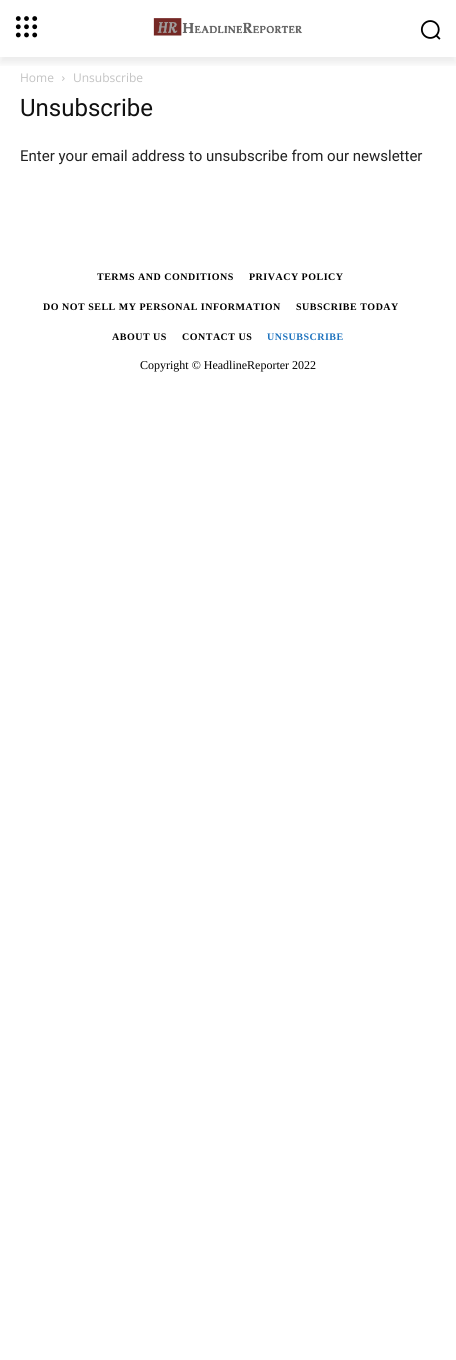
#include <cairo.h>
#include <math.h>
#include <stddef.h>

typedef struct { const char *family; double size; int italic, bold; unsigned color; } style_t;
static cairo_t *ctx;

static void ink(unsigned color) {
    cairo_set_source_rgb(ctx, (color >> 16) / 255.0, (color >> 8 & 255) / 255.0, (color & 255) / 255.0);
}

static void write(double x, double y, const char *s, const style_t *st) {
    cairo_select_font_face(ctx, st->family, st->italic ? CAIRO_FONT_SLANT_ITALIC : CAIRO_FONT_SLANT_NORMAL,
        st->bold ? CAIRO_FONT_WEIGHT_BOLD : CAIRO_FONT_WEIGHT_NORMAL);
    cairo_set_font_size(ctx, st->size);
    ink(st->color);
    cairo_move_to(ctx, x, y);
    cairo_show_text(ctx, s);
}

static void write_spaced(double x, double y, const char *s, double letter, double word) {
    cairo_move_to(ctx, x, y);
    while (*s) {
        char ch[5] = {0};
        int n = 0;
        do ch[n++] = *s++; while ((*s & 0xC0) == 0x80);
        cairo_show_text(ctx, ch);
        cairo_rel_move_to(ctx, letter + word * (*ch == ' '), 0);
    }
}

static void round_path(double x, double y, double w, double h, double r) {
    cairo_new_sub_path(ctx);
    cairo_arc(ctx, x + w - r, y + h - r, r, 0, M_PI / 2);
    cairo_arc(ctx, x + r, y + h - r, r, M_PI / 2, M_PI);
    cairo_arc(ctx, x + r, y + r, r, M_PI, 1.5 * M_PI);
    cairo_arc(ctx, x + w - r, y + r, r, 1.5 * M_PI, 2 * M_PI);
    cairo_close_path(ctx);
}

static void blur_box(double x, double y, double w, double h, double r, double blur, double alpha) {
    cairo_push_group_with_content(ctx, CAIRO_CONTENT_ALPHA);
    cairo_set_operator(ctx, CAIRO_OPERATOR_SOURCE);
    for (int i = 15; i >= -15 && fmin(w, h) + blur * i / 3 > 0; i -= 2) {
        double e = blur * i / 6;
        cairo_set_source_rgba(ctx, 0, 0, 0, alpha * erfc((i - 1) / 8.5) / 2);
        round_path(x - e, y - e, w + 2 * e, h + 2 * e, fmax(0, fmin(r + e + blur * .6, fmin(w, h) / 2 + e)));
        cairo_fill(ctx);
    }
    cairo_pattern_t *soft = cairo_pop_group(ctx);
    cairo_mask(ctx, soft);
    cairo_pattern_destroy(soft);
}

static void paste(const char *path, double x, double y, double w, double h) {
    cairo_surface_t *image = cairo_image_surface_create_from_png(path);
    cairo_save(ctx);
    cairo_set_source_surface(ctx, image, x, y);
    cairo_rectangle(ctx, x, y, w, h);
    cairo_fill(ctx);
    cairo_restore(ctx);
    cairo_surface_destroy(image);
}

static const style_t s1 = {"Open Sans", 12, 0, 0, 0xc3c3c3};
static const style_t s2 = {"Roboto", 24, 0, 0, 0x111111};
static const style_t s3 = {"Roboto", 15, 0, 0, 0x222222};
static const style_t s4 = {"Liberation Serif", 12, 0, 0, 0x000000};

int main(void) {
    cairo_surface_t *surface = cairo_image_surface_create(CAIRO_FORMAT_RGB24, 456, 1360);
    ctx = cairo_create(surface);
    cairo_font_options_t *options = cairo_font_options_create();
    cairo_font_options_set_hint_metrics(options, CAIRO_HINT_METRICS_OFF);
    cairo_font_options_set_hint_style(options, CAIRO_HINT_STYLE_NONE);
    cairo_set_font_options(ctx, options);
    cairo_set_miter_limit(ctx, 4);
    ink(0xffffff);
    cairo_paint(ctx);
    paste("pic1.png", 15, 16, 23, 22);
    paste("pic2.png", 153, 18, 150, 18);
    paste("pic3.png", 420, 20, 21, 20);
    cairo_save(ctx);
    cairo_rectangle(ctx, 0, 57, 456, 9);
    cairo_clip(ctx);
    ink(0x000000);
    blur_box(0, 6, 456, 57, 0, 4, 0.08);
    cairo_restore(ctx);
    write(20, 82, "Home", &s1);
    paste("pic4.png", 62, 76, 3, 5);
    write(73, 82, "Unsubscribe", &s1);
    write(20, 116, "Unsubscribe", &s2);
    write(20, 161, "Enter your email address to unsubscribe from our newsletter", &s3);
    cairo_select_font_face(ctx, "Liberation Serif", CAIRO_FONT_SLANT_NORMAL, CAIRO_FONT_WEIGHT_BOLD);
    cairo_set_font_size(ctx, 10);
    ink(0x000000);
    write_spaced(97, 280, "TERMS AND CONDITIONS", 0.5, 0);
    write_spaced(249, 280, "PRIVACY POLICY", 0.5, 0);
    write_spaced(43, 310, "DO NOT SELL MY PERSONAL INFORMATION", 0.5, 0);
    write_spaced(296, 310, "SUBSCRIBE TODAY", 0.5, 0);
    write_spaced(112, 340, "ABOUT US", 0.5, 0);
    write_spaced(182, 340, "CONTACT US", 0.5, 0);
    ink(0x1e73be);
    write_spaced(267, 340, "UNSUBSCRIBE", 0.5, 0);
    write(140, 369, "Copyright © HeadlineReporter 2022", &s4);
    cairo_surface_write_to_png(surface, "screenshot.png");
    cairo_font_options_destroy(options);
    cairo_destroy(ctx);
    cairo_surface_destroy(surface);
    return 0;
}
